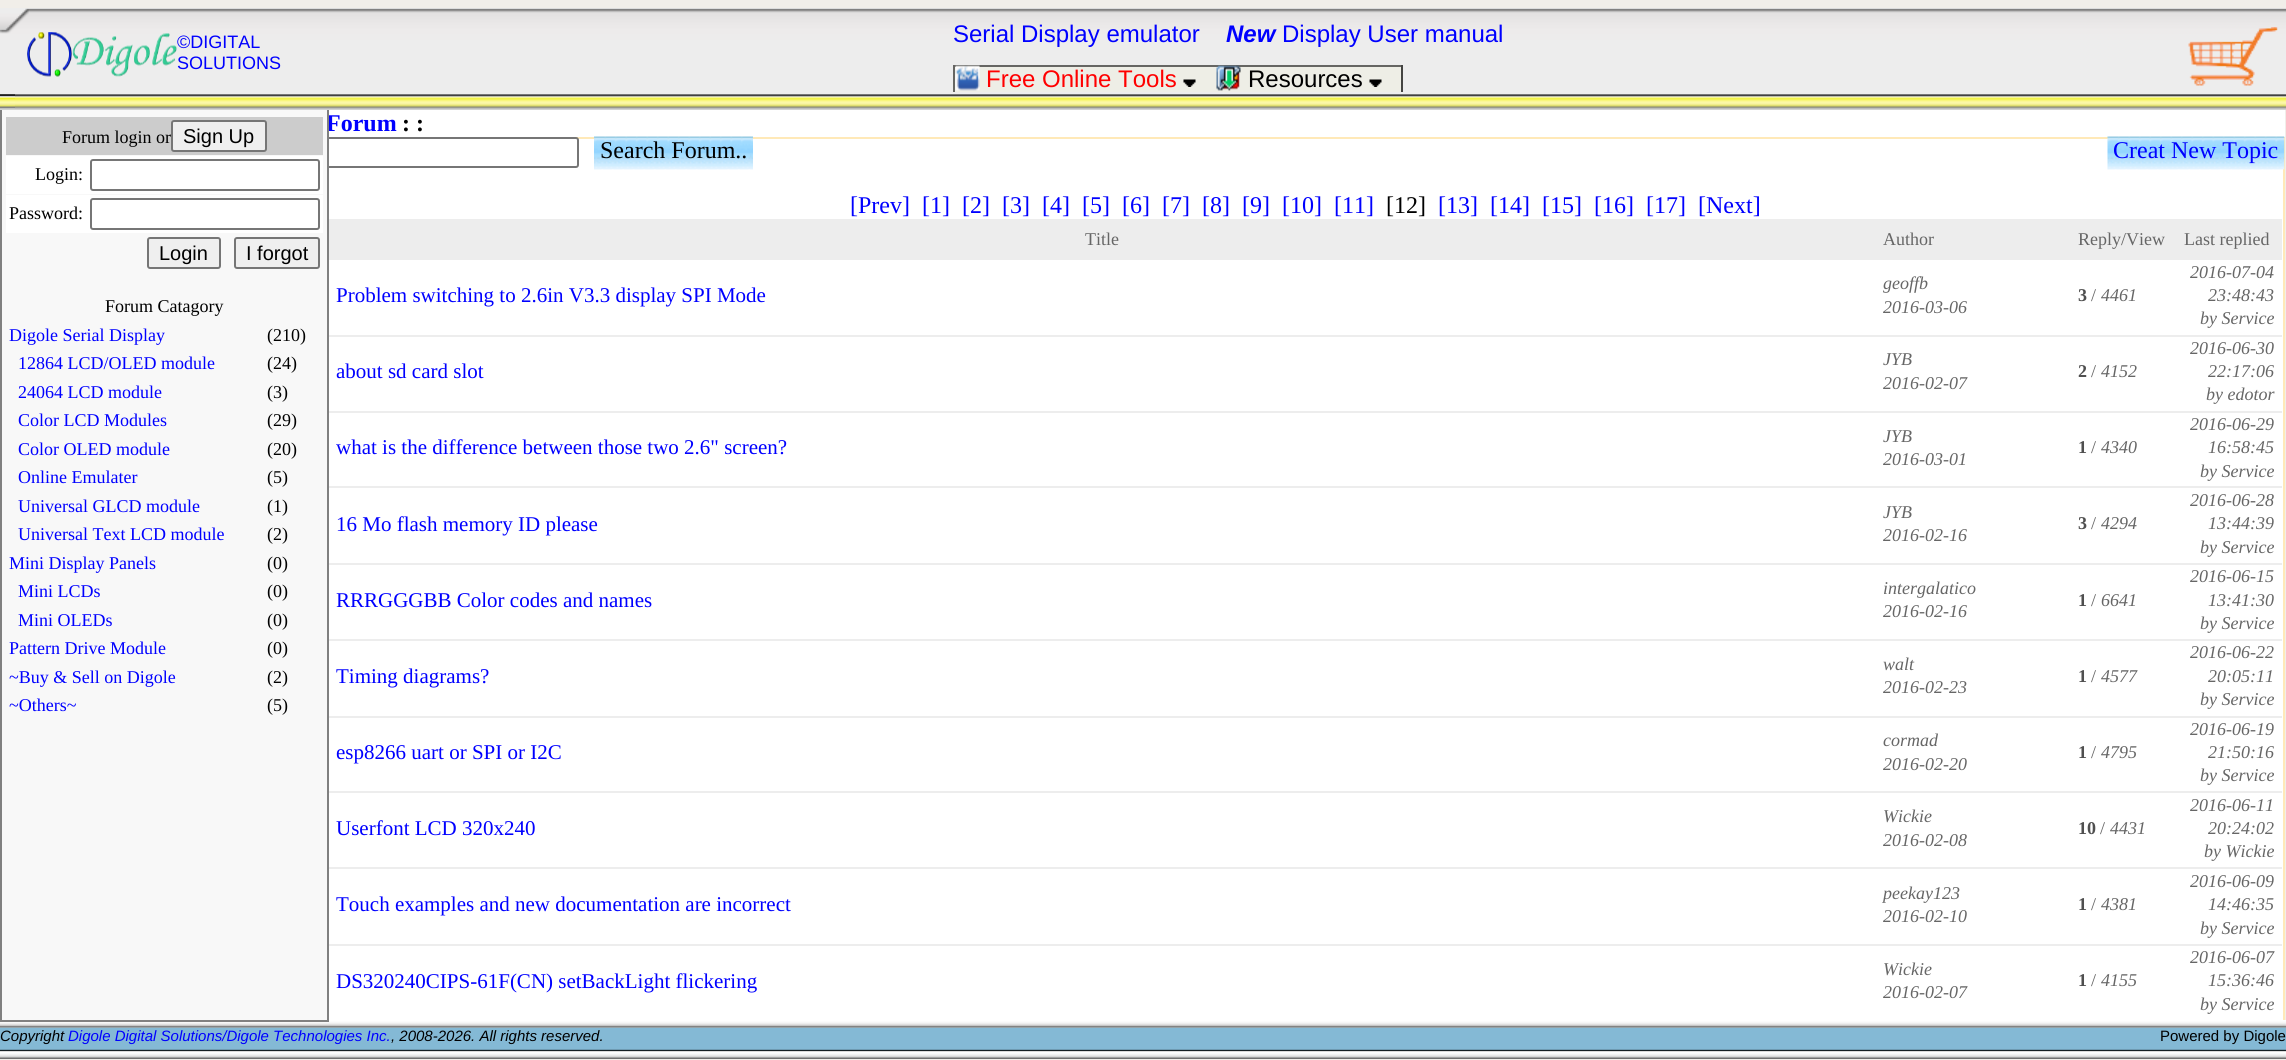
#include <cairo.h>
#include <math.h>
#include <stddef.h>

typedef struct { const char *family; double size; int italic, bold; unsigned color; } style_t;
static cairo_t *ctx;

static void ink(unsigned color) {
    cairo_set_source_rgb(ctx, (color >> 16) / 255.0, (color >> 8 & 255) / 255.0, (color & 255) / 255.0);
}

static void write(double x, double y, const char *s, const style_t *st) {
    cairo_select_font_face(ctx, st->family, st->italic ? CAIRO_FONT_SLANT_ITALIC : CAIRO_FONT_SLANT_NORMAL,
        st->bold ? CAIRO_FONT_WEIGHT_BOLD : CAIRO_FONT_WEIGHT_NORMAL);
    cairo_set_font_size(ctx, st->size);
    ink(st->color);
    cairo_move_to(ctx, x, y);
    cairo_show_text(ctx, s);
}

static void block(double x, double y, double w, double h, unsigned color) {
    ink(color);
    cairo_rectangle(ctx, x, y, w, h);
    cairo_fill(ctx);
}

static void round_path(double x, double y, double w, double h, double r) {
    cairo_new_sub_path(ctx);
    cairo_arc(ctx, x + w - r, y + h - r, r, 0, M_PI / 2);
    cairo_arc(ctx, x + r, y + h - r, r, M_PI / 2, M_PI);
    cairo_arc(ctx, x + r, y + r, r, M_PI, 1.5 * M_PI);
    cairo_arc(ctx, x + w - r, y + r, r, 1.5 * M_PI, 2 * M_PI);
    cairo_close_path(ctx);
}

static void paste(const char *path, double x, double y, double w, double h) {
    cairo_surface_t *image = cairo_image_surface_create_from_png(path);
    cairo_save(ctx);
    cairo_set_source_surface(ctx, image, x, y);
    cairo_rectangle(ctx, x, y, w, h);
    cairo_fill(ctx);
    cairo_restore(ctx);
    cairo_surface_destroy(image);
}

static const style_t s1 = {"Liberation Sans", 18, 0, 0, 0x0000ff};
static const style_t s2 = {"Liberation Sans", 24, 0, 0, 0x0000ff};
static const style_t s3 = {"Liberation Sans", 24, 1, 1, 0x0000ff};
static const style_t s4 = {"Liberation Sans", 24, 0, 0, 0xff0000};
static const style_t s5 = {"Liberation Sans", 24, 0, 0, 0x000000};
static const style_t s6 = {"Liberation Serif", 24, 0, 1, 0x0000ff};
static const style_t s7 = {"Liberation Serif", 18, 0, 0, 0x000000};
static const style_t s8 = {"Liberation Sans", 20, 0, 0, 0x000000};
static const style_t s9 = {"Liberation Serif", 18, 0, 0, 0x0000ff};
static const style_t s10 = {"Liberation Serif", 24, 0, 1, 0x000000};
static const style_t s11 = {"Liberation Serif", 24, 0, 0, 0x000000};
static const style_t s12 = {"Liberation Serif", 24, 0, 0, 0x0000ff};
static const style_t s13 = {"Liberation Serif", 18, 0, 0, 0x666666};
static const style_t s14 = {"Liberation Serif", 21, 0, 0, 0x0000ff};
static const style_t s15 = {"Liberation Serif", 18, 1, 0, 0x666666};
static const style_t s16 = {"Liberation Serif", 18, 0, 1, 0x4f4f4f};
static const style_t s17 = {"Liberation Sans", 15, 1, 0, 0x000000};
static const style_t s18 = {"Liberation Sans", 15, 1, 0, 0x0000ff};
static const style_t s19 = {"Liberation Sans", 15, 0, 0, 0x000000};

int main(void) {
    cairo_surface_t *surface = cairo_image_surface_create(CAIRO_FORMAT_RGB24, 2286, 1060);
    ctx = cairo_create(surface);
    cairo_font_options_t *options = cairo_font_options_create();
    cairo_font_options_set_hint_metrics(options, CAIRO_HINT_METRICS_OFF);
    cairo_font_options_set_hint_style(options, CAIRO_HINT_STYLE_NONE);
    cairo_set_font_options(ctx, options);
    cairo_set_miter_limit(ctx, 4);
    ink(0xf1eee9);
    cairo_paint(ctx);
    paste("pic1.png", 0, 8, 2286, 87);
    paste("pic3.png", 27, 32, 150, 45);
    paste("pic2.png", 0, 8, 29, 26);
    write(177, 48, "©DIGITAL", &s1);
    write(177, 69, "SOLUTIONS", &s1);
    write(953, 42, "Serial Display emulator", &s2);
    write(1226, 42, "New", &s3);
    write(1282, 42, "Display User manual", &s2);
    block(955, 67, 446, 25, 0xeeeee6);
    block(953, 65, 450, 2, 0x666663);
    block(1401, 65, 2, 27, 0x444442);
    block(953, 65, 2, 27, 0x666663);
    paste("pic4.png", 955, 65, 25, 26);
    write(986, 87, "Free Online Tools", &s4);
    paste("pic5.png", 1183, 79, 13, 8);
    paste("pic6.png", 1216, 65, 25, 26);
    write(1248, 87, "Resources", &s5);
    paste("pic5.png", 1369, 79, 13, 8);
    paste("pic7.png", 2188, 27, 90, 59);
    block(329, 110, 1956, 910, 0xffffff);
    write(326, 131, "Forum", &s6);
    cairo_save(ctx);
    cairo_rectangle(ctx, 326, 110, 1959, 910);
    cairo_clip(ctx);
    cairo_rectangle(ctx, 327, 138, 1957, 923);
    ink(0xffe9b8);
    cairo_stroke(ctx);
    cairo_restore(ctx);
    ink(0xffffff);
    round_path(327, 138, 251, 29, 2);
    cairo_fill_preserve(ctx);
    ink(0x767676);
    cairo_stroke(ctx);
    paste("pic13.png", 0, 1027, 2286, 25);
    paste("pic12.png", 0, 1020, 2286, 8);
    ink(0xf8f8f8);
    cairo_rectangle(ctx, 1, 109, 327, 912);
    cairo_fill_preserve(ctx);
    ink(0x808080);
    cairo_stroke(ctx);
    paste("pic8.png", 0, 94, 2286, 16);
    paste("pic9.png", 0, 94, 15, 15);
    block(6, 117, 317, 38, 0xcccccc);
    write(62, 143, "Forum login or", &s7);
    ink(0xefefef);
    round_path(172, 121, 94, 30, 2);
    cairo_fill_preserve(ctx);
    ink(0x767676);
    cairo_stroke(ctx);
    write(183, 143, "Sign Up", &s8);
    block(6, 156, 317, 38, 0xffffff);
    write(35, 180, "Login:", &s7);
    round_path(91, 160, 228, 30, 2);
    ink(0x767676);
    cairo_stroke(ctx);
    block(6, 195, 317, 38, 0xffffff);
    write(9, 219, "Password:", &s7);
    round_path(91, 199, 228, 30, 2);
    ink(0x767676);
    cairo_stroke(ctx);
    ink(0xefefef);
    round_path(148, 238, 72, 30, 2);
    cairo_fill_preserve(ctx);
    ink(0x767676);
    cairo_stroke(ctx);
    write(159, 260, "Login", &s8);
    ink(0xefefef);
    round_path(235, 238, 84, 30, 2);
    cairo_fill_preserve(ctx);
    ink(0x767676);
    cairo_stroke(ctx);
    write(246, 260, "I forgot", &s8);
    write(105, 312, "Forum Catagory", &s7);
    write(9, 341, "Digole Serial Display", &s9);
    write(267, 341, "(210)", &s7);
    write(18, 369, "12864 LCD/OLED module", &s9);
    write(267, 369, "(24)", &s7);
    write(18, 398, "24064 LCD module", &s9);
    write(267, 398, "(3)", &s7);
    write(18, 426, "Color LCD Modules", &s9);
    write(267, 426, "(29)", &s7);
    write(18, 455, "Color OLED module", &s9);
    write(267, 455, "(20)", &s7);
    write(18, 483, "Online Emulater", &s9);
    write(267, 483, "(5)", &s7);
    write(18, 512, "Universal GLCD module", &s9);
    write(267, 512, "(1)", &s7);
    write(18, 540, "Universal Text LCD module", &s9);
    write(267, 540, "(2)", &s7);
    write(9, 569, "Mini Display Panels", &s9);
    write(267, 569, "(0)", &s7);
    write(18, 597, "Mini LCDs", &s9);
    write(267, 597, "(0)", &s7);
    write(18, 626, "Mini OLEDs", &s9);
    write(267, 626, "(0)", &s7);
    write(9, 654, "Pattern Drive Module", &s9);
    write(267, 654, "(0)", &s7);
    write(9, 683, "~Buy & Sell on Digole", &s9);
    write(267, 683, "(2)", &s7);
    write(9, 711, "~Others~", &s9);
    write(267, 711, "(5)", &s7);
    write(402, 131, ": :", &s10);
    paste("pic10.png", 594, 136, 159, 34);
    write(600, 158, "Search Forum..", &s11);
    paste("pic11.png", 2107, 136, 178, 34);
    write(2113, 158, "Creat New Topic", &s12);
    write(850, 213, "[Prev]", &s12);
    write(922, 213, "[1]", &s12);
    write(962, 213, "[2]", &s12);
    write(1002, 213, "[3]", &s12);
    write(1042, 213, "[4]", &s12);
    write(1082, 213, "[5]", &s12);
    write(1122, 213, "[6]", &s12);
    write(1162, 213, "[7]", &s12);
    write(1202, 213, "[8]", &s12);
    write(1242, 213, "[9]", &s12);
    write(1282, 213, "[10]", &s12);
    write(1334, 213, "[11]", &s12);
    write(1386, 213, "[12]", &s11);
    write(1438, 213, "[13]", &s12);
    write(1490, 213, "[14]", &s12);
    write(1542, 213, "[15]", &s12);
    write(1594, 213, "[16]", &s12);
    write(1646, 213, "[17]", &s12);
    write(1698, 213, "[Next]", &s12);
    block(329, 219, 1953, 39, 0xededed);
    write(1085, 245, "Title", &s13);
    write(1883, 245, "Author", &s13);
    write(2078, 245, "Reply/View", &s13);
    write(2184, 245, "Last replied", &s13);
    block(329, 258, 1953, 2, 0xededed);
    write(336, 302, "Problem switching to 2.6in V3.3 display SPI Mode", &s14);
    write(1883, 289, "geoffb", &s15);
    write(1883, 313, "2016-03-06", &s15);
    write(2078, 301, "3", &s16);
    write(2091, 301, "/", &s13);
    write(2101, 301, "4461", &s15);
    write(2190, 278, "2016-07-04", &s15);
    write(2208, 301, "23:48:43", &s15);
    write(2200, 324, "by Service", &s15);
    block(329, 335, 1953, 2, 0xededed);
    write(336, 378, "about sd card slot", &s14);
    write(1883, 365, "JYB", &s15);
    write(1883, 389, "2016-02-07", &s15);
    write(2078, 377, "2", &s16);
    write(2091, 377, "/", &s13);
    write(2101, 377, "4152", &s15);
    write(2190, 354, "2016-06-30", &s15);
    write(2208, 377, "22:17:06", &s15);
    write(2206, 400, "by edotor", &s15);
    block(329, 411, 1953, 2, 0xededed);
    write(336, 454, "what is the difference between those two 2.6\" screen?", &s14);
    write(1883, 442, "JYB", &s15);
    write(1883, 465, "2016-03-01", &s15);
    write(2078, 453, "1", &s16);
    write(2091, 453, "/", &s13);
    write(2101, 453, "4340", &s15);
    write(2190, 430, "2016-06-29", &s15);
    write(2208, 453, "16:58:45", &s15);
    write(2200, 477, "by Service", &s15);
    block(329, 486, 1953, 2, 0xededed);
    write(336, 531, "16 Mo flash memory ID please", &s14);
    write(1883, 518, "JYB", &s15);
    write(1883, 541, "2016-02-16", &s15);
    write(2078, 529, "3", &s16);
    write(2091, 529, "/", &s13);
    write(2101, 529, "4294", &s15);
    write(2190, 506, "2016-06-28", &s15);
    write(2208, 529, "13:44:39", &s15);
    write(2200, 553, "by Service", &s15);
    block(329, 563, 1953, 2, 0xededed);
    write(336, 607, "RRRGGGBB Color codes and names", &s14);
    write(1883, 594, "intergalatico", &s15);
    write(1883, 617, "2016-02-16", &s15);
    write(2078, 606, "1", &s16);
    write(2091, 606, "/", &s13);
    write(2101, 606, "6641", &s15);
    write(2190, 582, "2016-06-15", &s15);
    write(2208, 606, "13:41:30", &s15);
    write(2200, 629, "by Service", &s15);
    block(329, 639, 1953, 2, 0xededed);
    write(336, 683, "Timing diagrams?", &s14);
    write(1883, 670, "walt", &s15);
    write(1883, 693, "2016-02-23", &s15);
    write(2078, 682, "1", &s16);
    write(2091, 682, "/", &s13);
    write(2101, 682, "4577", &s15);
    write(2190, 658, "2016-06-22", &s15);
    write(2208, 682, "20:05:11", &s15);
    write(2200, 705, "by Service", &s15);
    block(329, 716, 1953, 2, 0xededed);
    write(336, 759, "esp8266 uart or SPI or I2C", &s14);
    write(1883, 746, "cormad", &s15);
    write(1883, 770, "2016-02-20", &s15);
    write(2078, 758, "1", &s16);
    write(2091, 758, "/", &s13);
    write(2101, 758, "4795", &s15);
    write(2190, 735, "2016-06-19", &s15);
    write(2208, 758, "21:50:16", &s15);
    write(2200, 781, "by Service", &s15);
    block(329, 791, 1953, 2, 0xededed);
    write(336, 835, "Userfont LCD 320x240", &s14);
    write(1883, 822, "Wickie", &s15);
    write(1883, 846, "2016-02-08", &s15);
    write(2078, 834, "10", &s16);
    write(2100, 834, "/", &s13);
    write(2110, 834, "4431", &s15);
    write(2190, 811, "2016-06-11", &s15);
    write(2208, 834, "20:24:02", &s15);
    write(2204, 857, "by Wickie", &s15);
    block(329, 867, 1953, 2, 0xededed);
    write(336, 911, "Touch examples and new documentation are incorrect", &s14);
    write(1883, 899, "peekay123", &s15);
    write(1883, 922, "2016-02-10", &s15);
    write(2078, 910, "1", &s16);
    write(2091, 910, "/", &s13);
    write(2101, 910, "4381", &s15);
    write(2190, 887, "2016-06-09", &s15);
    write(2208, 910, "14:46:35", &s15);
    write(2200, 934, "by Service", &s15);
    block(329, 944, 1953, 2, 0xededed);
    write(336, 988, "DS320240CIPS-61F(CN) setBackLight flickering", &s14);
    write(1883, 975, "Wickie", &s15);
    write(1883, 998, "2016-02-07", &s15);
    write(2078, 986, "1", &s16);
    write(2091, 986, "/", &s13);
    write(2101, 986, "4155", &s15);
    write(2190, 963, "2016-06-07", &s15);
    write(2208, 986, "15:36:46", &s15);
    write(2200, 1010, "by Service", &s15);
    write(0, 1041, "Copyright", &s17);
    write(68, 1041, "Digole Digital Solutions/Digole Technologies Inc.", &s18);
    write(391, 1041, ", 2008-2026. All rights reserved.", &s17);
    write(2160, 1041, "Powered by Digole", &s19);
    paste("pic14.png", 0, 1051, 2286, 8);
    cairo_surface_write_to_png(surface, "screenshot.png");
    cairo_font_options_destroy(options);
    cairo_destroy(ctx);
    cairo_surface_destroy(surface);
    return 0;
}
